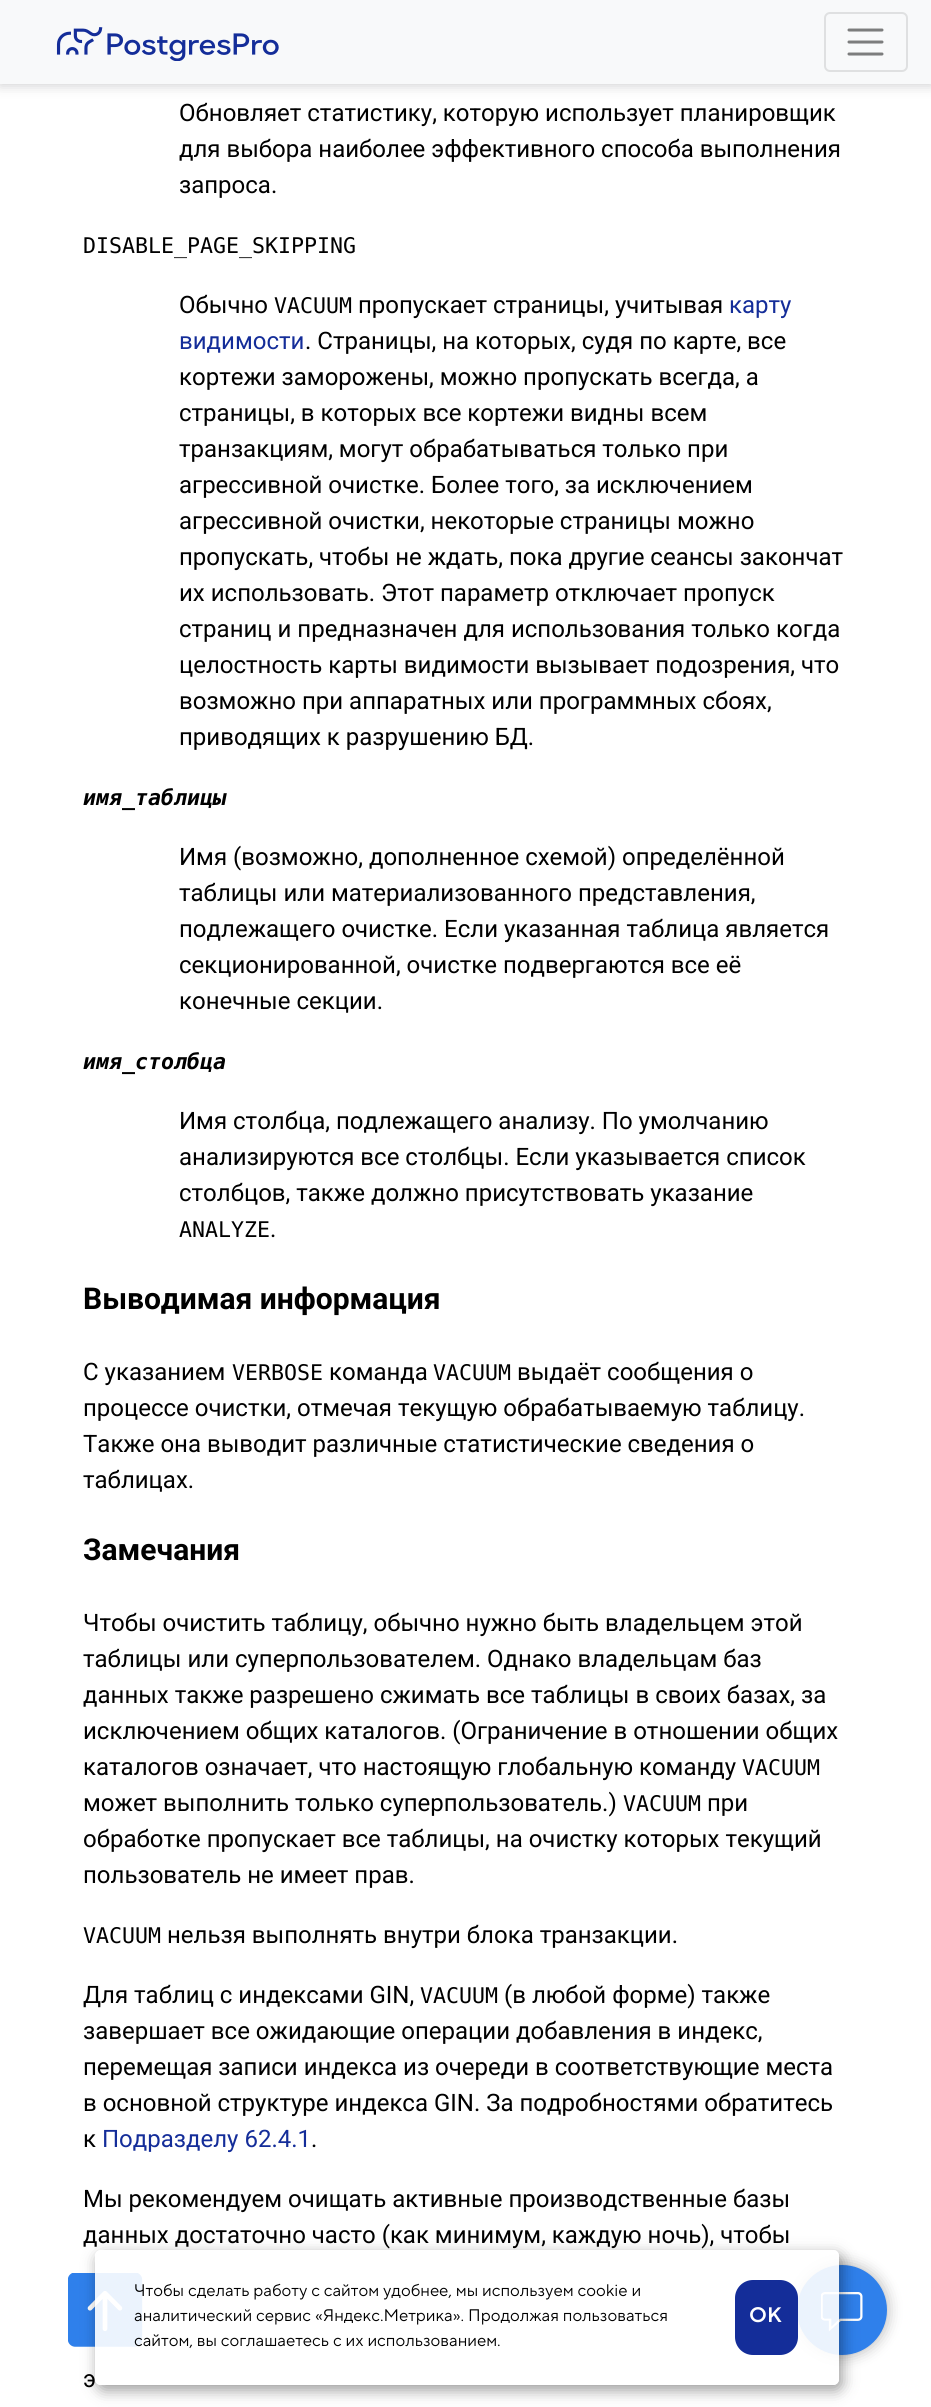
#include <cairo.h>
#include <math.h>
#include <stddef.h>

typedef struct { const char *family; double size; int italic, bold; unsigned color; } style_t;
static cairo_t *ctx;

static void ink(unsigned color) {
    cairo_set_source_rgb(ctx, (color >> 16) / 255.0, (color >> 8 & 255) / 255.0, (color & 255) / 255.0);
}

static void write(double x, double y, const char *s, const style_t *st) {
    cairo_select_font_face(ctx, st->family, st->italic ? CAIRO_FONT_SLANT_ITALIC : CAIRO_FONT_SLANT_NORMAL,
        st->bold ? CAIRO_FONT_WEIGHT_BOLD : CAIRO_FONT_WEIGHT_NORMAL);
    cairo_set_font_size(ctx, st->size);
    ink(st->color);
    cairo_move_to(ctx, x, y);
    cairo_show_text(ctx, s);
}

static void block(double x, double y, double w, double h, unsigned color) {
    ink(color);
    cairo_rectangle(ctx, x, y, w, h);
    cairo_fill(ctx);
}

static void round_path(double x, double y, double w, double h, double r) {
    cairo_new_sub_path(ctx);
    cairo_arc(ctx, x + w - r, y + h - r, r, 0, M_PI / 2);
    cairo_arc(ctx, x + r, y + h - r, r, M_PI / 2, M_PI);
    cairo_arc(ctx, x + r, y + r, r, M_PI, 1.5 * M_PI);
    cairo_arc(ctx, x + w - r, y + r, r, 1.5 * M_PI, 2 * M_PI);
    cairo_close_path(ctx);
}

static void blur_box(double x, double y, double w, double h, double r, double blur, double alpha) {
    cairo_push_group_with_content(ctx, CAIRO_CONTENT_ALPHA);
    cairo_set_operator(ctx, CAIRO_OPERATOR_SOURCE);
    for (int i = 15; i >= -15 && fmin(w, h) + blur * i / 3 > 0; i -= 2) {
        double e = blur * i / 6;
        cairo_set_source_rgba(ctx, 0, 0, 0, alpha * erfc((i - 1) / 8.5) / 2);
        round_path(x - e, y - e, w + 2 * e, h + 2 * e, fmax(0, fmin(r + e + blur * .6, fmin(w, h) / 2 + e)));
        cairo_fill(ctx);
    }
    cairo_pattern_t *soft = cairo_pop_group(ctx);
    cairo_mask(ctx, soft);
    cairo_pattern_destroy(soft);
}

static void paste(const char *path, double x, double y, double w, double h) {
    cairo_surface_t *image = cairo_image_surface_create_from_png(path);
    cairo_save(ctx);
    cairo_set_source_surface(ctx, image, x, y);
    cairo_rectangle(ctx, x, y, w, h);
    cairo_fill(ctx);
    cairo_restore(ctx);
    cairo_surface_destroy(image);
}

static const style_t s1 = {"Roboto", 24, 0, 0, 0x000000};
static const style_t s2 = {"DejaVu Sans Mono", 21.6, 0, 0, 0x000000};
static const style_t s3 = {"Roboto", 24, 0, 0, 0x142d99};
static const style_t s4 = {"DejaVu Sans Mono", 21.6, 1, 1, 0x000000};
static const style_t s5 = {"Roboto", 30, 0, 1, 0x000000};
static const style_t s6 = {"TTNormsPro", 16.8, 0, 0, 0x000000};
static const style_t s7 = {"TTNormsPro SemiBold", 21, 0, 0, 0xffffff};

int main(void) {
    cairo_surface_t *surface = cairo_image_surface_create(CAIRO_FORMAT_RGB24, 931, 2407);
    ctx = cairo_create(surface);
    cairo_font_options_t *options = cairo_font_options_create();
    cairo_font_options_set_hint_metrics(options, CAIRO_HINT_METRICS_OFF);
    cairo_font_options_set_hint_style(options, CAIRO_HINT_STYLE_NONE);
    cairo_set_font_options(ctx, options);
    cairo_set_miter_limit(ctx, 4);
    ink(0xffffff);
    cairo_paint(ctx);
    ink(0x202124);
    blur_box(0, 2, 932, 84, 0, 6, 0.2);
    block(0, 0, 931, 84, 0xf8f9fa);
    paste("pic1.png", 56, 27, 223, 34);
    round_path(825, 13, 82, 58, 5);
    ink(0xdfe0e1);
    cairo_stroke(ctx);
    cairo_new_path(ctx);
    cairo_move_to(ctx, 849, 30);
    cairo_line_to(ctx, 882, 30);
    cairo_move_to(ctx, 849, 42);
    cairo_line_to(ctx, 882, 42);
    cairo_move_to(ctx, 849, 54);
    cairo_line_to(ctx, 882, 54);
    ink(0x7c7d7d);
    cairo_set_line_width(ctx, 3);
    cairo_set_line_cap(ctx, CAIRO_LINE_CAP_ROUND);
    cairo_stroke(ctx);
    write(179, 121, "Обновляет статистику, которую использует планировщик", &s1);
    write(179, 157, "для выбора наиболее эффективного способа выполнения", &s1);
    write(179, 193, "запроса.", &s1);
    write(83, 253, "DISABLE_PAGE_SKIPPING", &s2);
    write(179, 313, "Обычно", &s1);
    write(274, 313, "VACUUM", &s2);
    write(358, 313, "пропускает страницы, учитывая", &s1);
    write(729, 313, "карту", &s3);
    write(179, 349, "видимости", &s3);
    write(305, 349, ". Страницы, на которых, судя по карте, все", &s1);
    write(179, 385, "кортежи заморожены, можно пропускать всегда, а", &s1);
    write(179, 421, "страницы, в которых все кортежи видны всем", &s1);
    write(179, 457, "транзакциям, могут обрабатываться только при", &s1);
    write(179, 493, "агрессивной очистке. Более того, за исключением", &s1);
    write(179, 529, "агрессивной очистки, некоторые страницы можно", &s1);
    write(179, 565, "пропускать, чтобы не ждать, пока другие сеансы закончат", &s1);
    write(179, 601, "их использовать. Этот параметр отключает пропуск", &s1);
    write(179, 637, "страниц и предназначен для использования только когда", &s1);
    write(179, 673, "целостность карты видимости вызывает подозрения, что", &s1);
    write(179, 709, "возможно при аппаратных или программных сбоях,", &s1);
    write(179, 745, "приводящих к разрушению БД.", &s1);
    write(83, 805, "имя_таблицы", &s4);
    write(179, 865, "Имя (возможно, дополненное схемой) определённой", &s1);
    write(179, 901, "таблицы или материализованного представления,", &s1);
    write(179, 937, "подлежащего очистке. Если указанная таблица является", &s1);
    write(179, 973, "секционированной, очистке подвергаются все её", &s1);
    write(179, 1009, "конечные секции.", &s1);
    write(83, 1069, "имя_столбца", &s4);
    write(179, 1129, "Имя столбца, подлежащего анализу. По умолчанию", &s1);
    write(179, 1165, "анализируются все столбцы. Если указывается список", &s1);
    write(179, 1201, "столбцов, также должно присутствовать указание", &s1);
    write(179, 1237, "ANALYZE", &s2);
    write(270, 1237, ".", &s1);
    write(83, 1309, "Выводимая информация", &s5);
    write(83, 1380, "С указанием", &s1);
    write(232, 1380, "VERBOSE", &s2);
    write(329, 1380, "команда", &s1);
    write(433, 1380, "VACUUM", &s2);
    write(517, 1380, "выдаёт сообщения о", &s1);
    write(83, 1416, "процессе очистки, отмечая текущую обрабатываемую таблицу.", &s1);
    write(83, 1452, "Также она выводит различные статистические сведения о", &s1);
    write(83, 1488, "таблицах.", &s1);
    write(83, 1560, "Замечания", &s5);
    write(83, 1631, "Чтобы очистить таблицу, обычно нужно быть владельцем этой", &s1);
    write(83, 1667, "таблицы или суперпользователем. Однако владельцам баз", &s1);
    write(83, 1703, "данных также разрешено сжимать все таблицы в своих базах, за", &s1);
    write(83, 1739, "исключением общих каталогов. (Ограничение в отношении общих", &s1);
    write(83, 1775, "каталогов означает, что настоящую глобальную команду", &s1);
    write(742, 1775, "VACUUM", &s2);
    write(83, 1811, "может выполнить только суперпользователь.)", &s1);
    write(623, 1811, "VACUUM", &s2);
    write(707, 1811, "при", &s1);
    write(83, 1847, "обработке пропускает все таблицы, на очистку которых текущий", &s1);
    write(83, 1883, "пользователь не имеет прав.", &s1);
    write(83, 1943, "VACUUM", &s2);
    write(167, 1943, "нельзя выполнять внутри блока транзакции.", &s1);
    write(83, 2003, "Для таблиц с индексами GIN,", &s1);
    write(420, 2003, "VACUUM", &s2);
    write(504, 2003, "(в любой форме) также", &s1);
    write(83, 2039, "завершает все ожидающие операции добавления в индекс,", &s1);
    write(83, 2075, "перемещая записи индекса из очереди в соответствующие места", &s1);
    write(83, 2111, "в основной структуре индекса GIN. За подробностями обратитесь", &s1);
    write(83, 2147, "к", &s1);
    write(102, 2147, "Подразделу 62.4.1", &s3);
    write(311, 2147, ".", &s1);
    write(83, 2207, "Мы рекомендуем очищать активные производственные базы", &s1);
    write(83, 2243, "данных достаточно часто (как минимум, каждую ночь), чтобы", &s1);
    write(83, 2387, "э", &s1);
    paste("pic2.png", 68, 2273, 75, 74);
    ink(0x000000);
    blur_box(797, 2265, 90, 90, 45, 7.5, 0.3);
    ink(0x2f80eb);
    cairo_arc(ctx, 842, 2310, 45, 0, 2 * M_PI);
    cairo_fill(ctx);
    paste("pic3.png", 821, 2292, 42, 40);
    cairo_save(ctx);
    cairo_set_fill_rule(ctx, CAIRO_FILL_RULE_EVEN_ODD);
    cairo_new_path(ctx);
    cairo_move_to(ctx, 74, 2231);
    cairo_line_to(ctx, 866, 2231);
    cairo_line_to(ctx, 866, 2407);
    cairo_line_to(ctx, 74, 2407);
    cairo_close_path(ctx);
    cairo_move_to(ctx, 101, 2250);
    cairo_line_to(ctx, 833, 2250);
    cairo_curve_to(ctx, 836.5, 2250, 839, 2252.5, 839, 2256);
    cairo_line_to(ctx, 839, 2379);
    cairo_curve_to(ctx, 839, 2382.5, 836.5, 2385, 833, 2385);
    cairo_line_to(ctx, 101, 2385);
    cairo_curve_to(ctx, 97.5, 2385, 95, 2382.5, 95, 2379);
    cairo_line_to(ctx, 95, 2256);
    cairo_curve_to(ctx, 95, 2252.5, 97.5, 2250, 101, 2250);
    cairo_close_path(ctx);
    cairo_clip(ctx);
    ink(0x000000);
    blur_box(98, 2255, 744, 135, 6, 7.5, 0.4);
    cairo_restore(ctx);
    cairo_set_source_rgba(ctx, 1, 1, 1, 0.9);
    round_path(95, 2250, 744, 135, 6);
    cairo_fill(ctx);
    write(134, 2296, "Чтобы сделать работу с сайтом удобнее, мы используем cookie и", &s6);
    write(134, 2321, "аналитический сервис «Яндекс.Метрика». Продолжая пользоваться", &s6);
    write(134, 2346, "сайтом, вы соглашаетесь с их использованием.", &s6);
    ink(0x142d99);
    round_path(736.5, 2281.5, 60, 72, 16.5);
    cairo_fill_preserve(ctx);
    cairo_set_line_cap(ctx, CAIRO_LINE_CAP_BUTT);
    cairo_stroke(ctx);
    write(749, 2322, "OK", &s7);
    cairo_surface_write_to_png(surface, "screenshot.png");
    cairo_font_options_destroy(options);
    cairo_destroy(ctx);
    cairo_surface_destroy(surface);
    return 0;
}
